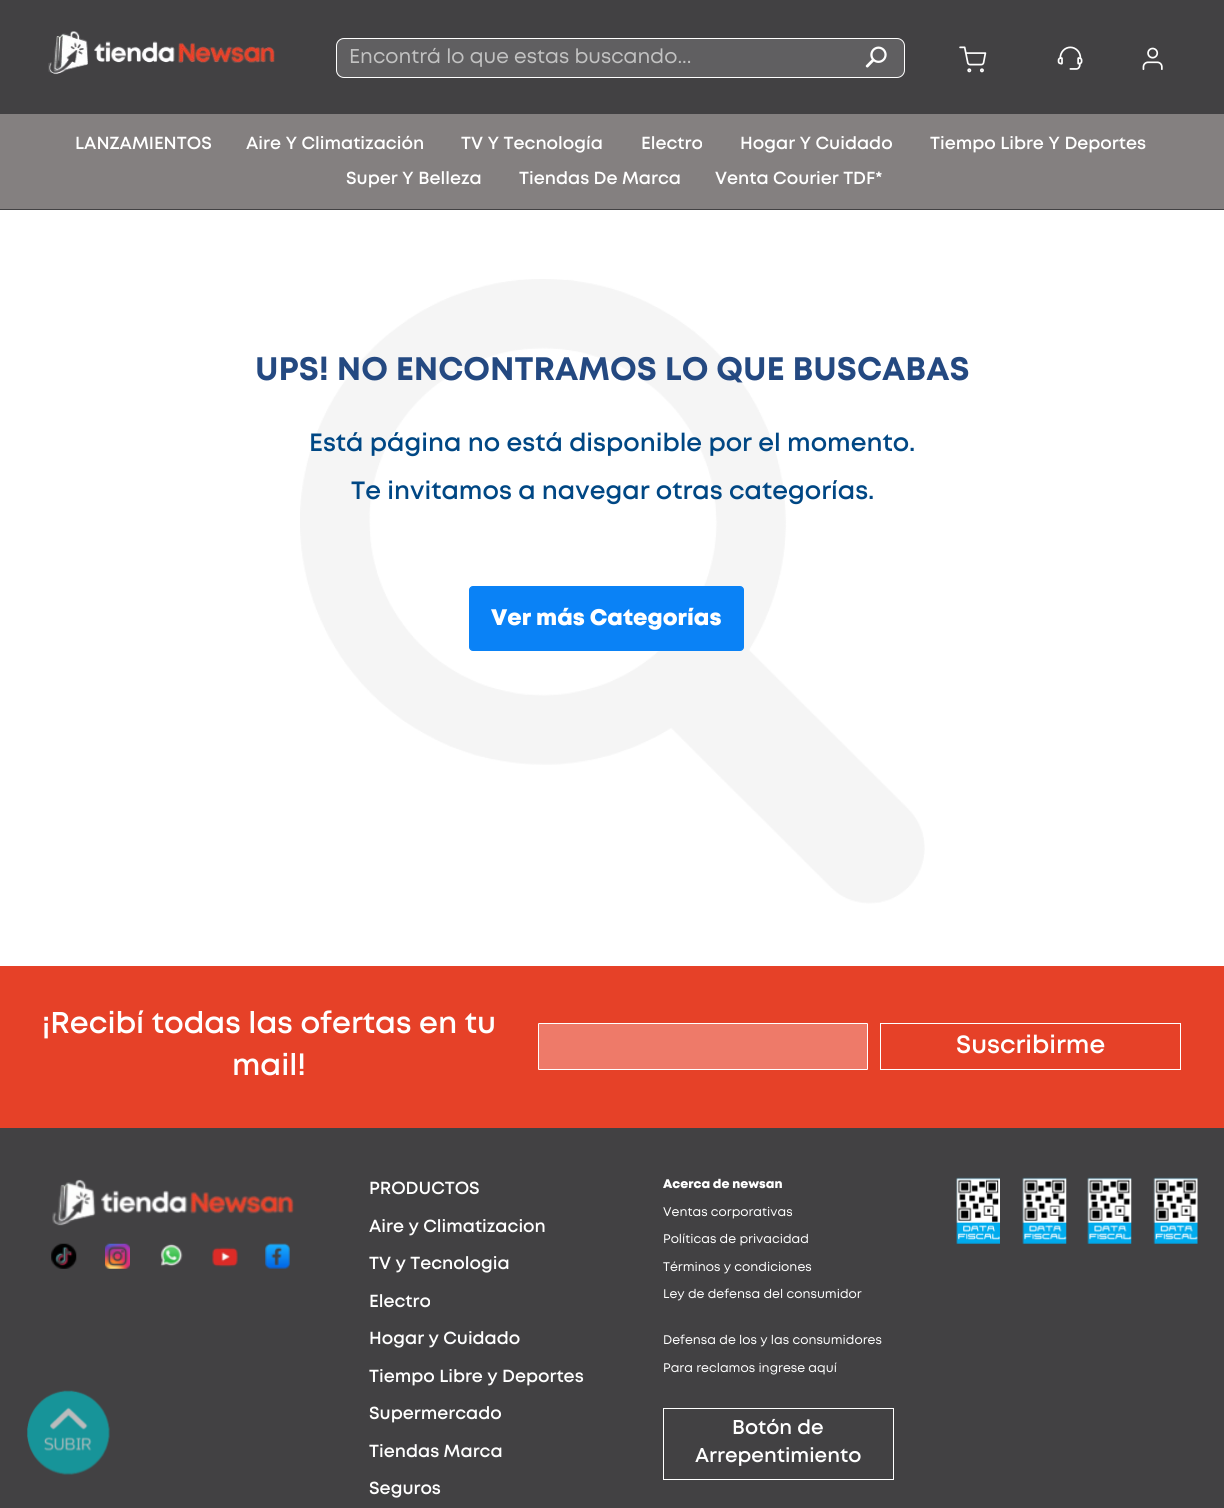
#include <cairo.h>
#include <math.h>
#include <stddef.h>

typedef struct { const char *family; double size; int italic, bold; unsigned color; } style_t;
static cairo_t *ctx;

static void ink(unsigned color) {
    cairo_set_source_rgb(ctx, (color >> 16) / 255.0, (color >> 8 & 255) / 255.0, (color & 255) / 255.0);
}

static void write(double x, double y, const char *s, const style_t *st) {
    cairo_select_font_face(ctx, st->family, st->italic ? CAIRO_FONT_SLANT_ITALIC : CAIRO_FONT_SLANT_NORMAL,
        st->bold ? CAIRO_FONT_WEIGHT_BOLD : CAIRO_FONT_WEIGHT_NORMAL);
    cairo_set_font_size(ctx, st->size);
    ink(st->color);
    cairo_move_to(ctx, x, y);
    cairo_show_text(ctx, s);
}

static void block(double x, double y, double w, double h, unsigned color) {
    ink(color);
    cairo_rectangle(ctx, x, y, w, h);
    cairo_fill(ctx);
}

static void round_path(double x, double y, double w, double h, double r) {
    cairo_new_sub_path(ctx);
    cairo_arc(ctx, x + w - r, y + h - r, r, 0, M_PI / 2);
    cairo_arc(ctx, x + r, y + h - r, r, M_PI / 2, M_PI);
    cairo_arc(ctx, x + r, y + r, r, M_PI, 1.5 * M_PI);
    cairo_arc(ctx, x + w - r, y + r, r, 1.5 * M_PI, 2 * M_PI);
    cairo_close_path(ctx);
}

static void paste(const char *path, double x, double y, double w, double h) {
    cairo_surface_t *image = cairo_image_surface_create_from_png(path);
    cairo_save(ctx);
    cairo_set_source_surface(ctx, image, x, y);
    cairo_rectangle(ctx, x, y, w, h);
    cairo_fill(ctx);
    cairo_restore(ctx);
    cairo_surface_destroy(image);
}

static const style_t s1 = {"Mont", 20, 0, 0, 0xc2c2c2};
static const style_t s2 = {"Mont SemiBold", 17.5, 0, 0, 0xffffff};
static const style_t s3 = {"Mont", 32.5, 0, 1, 0x244981};
static const style_t s4 = {"Mont SemiBold", 25, 0, 0, 0x004784};
static const style_t s5 = {"Mont Black", 22.5, 0, 0, 0xffffff};
static const style_t s6 = {"Mont SemiBold", 30, 0, 0, 0xffffff};
static const style_t s7 = {"Mont SemiBold", 25, 0, 0, 0xffffff};
static const style_t s8 = {"Mont Black", 12.5, 0, 0, 0xffffff};
static const style_t s9 = {"Mont", 12.5, 0, 0, 0xffffff};
static const style_t s10 = {"Mont SemiBold", 20, 0, 0, 0xffffff};

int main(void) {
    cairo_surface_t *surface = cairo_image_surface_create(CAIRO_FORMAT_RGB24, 1224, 1508);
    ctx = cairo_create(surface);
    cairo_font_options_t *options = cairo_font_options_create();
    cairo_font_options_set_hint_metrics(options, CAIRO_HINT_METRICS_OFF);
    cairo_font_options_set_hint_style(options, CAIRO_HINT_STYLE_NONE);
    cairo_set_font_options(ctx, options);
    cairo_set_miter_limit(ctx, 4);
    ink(0xffffff);
    cairo_paint(ctx);
    block(0, 0, 1224, 114, 0x424143);
    paste("pic1.png", 48, 31, 227, 44);
    ink(0x605f61);
    round_path(336.5, 38.5, 568, 39, 7.5);
    cairo_fill_preserve(ctx);
    ink(0xffffff);
    cairo_set_line_width(ctx, 1);
    cairo_stroke(ctx);
    write(349, 63, "Encontrá lo que estas buscando...", &s1);
    paste("pic2.png", 865, 46, 22, 22);
    paste("pic3.png", 959, 46, 28, 27);
    paste("pic4.png", 1057, 46, 26, 24);
    paste("pic5.png", 1142, 47, 21, 23);
    block(0, 114, 1224, 95, 0x848080);
    block(0, 209, 1224, 1, 0x424143);
    write(75, 149, "LANZAMIENTOS", &s2);
    write(246, 149, "Aire Y Climatización", &s2);
    write(461, 149, "TV Y Tecnología", &s2);
    write(641, 149, "Electro", &s2);
    write(740, 149, "Hogar Y Cuidado", &s2);
    write(930, 149, "Tiempo Libre Y Deportes", &s2);
    write(346, 184, "Super Y Belleza", &s2);
    write(519, 184, "Tiendas De Marca", &s2);
    write(715, 184, "Venta Courier TDF*", &s2);
    paste("pic6.png", 300, 279, 625, 625);
    write(255, 380, "UPS! NO ENCONTRAMOS LO QUE BUSCABAS", &s3);
    write(309, 451, "Está página no está disponible por el momento.", &s4);
    write(351, 499, "Te invitamos a navegar otras categorías.", &s4);
    ink(0x0a82f6);
    round_path(469.5, 586.5, 274, 64, 3.5);
    cairo_fill_preserve(ctx);
    cairo_stroke(ctx);
    write(491, 625, "Ver más Categorías", &s5);
    block(0, 966, 1224, 162, 0xe64128);
    write(42, 1033, "¡Recibí todas las ofertas en tu", &s6);
    write(232, 1075, "mail!", &s6);
    ink(0xee7a69);
    round_path(538.5, 1023.5, 329, 46, 0.5);
    cairo_fill_preserve(ctx);
    ink(0xffffff);
    cairo_stroke(ctx);
    cairo_rectangle(ctx, 880.5, 1023.5, 300, 46);
    cairo_stroke(ctx);
    write(956, 1053, "Suscribirme", &s7);
    block(0, 1128, 1224, 380, 0x424143);
    paste("pic7.png", 52, 1179, 242, 47);
    paste("pic8.png", 51, 1243, 26, 26);
    paste("pic9.png", 105, 1243, 25, 26);
    paste("pic10.png", 160, 1243, 23, 24);
    paste("pic11.png", 212, 1247, 26, 20);
    paste("pic12.png", 265, 1243, 25, 26);
    write(369, 1194, "PRODUCTOS", &s2);
    write(369, 1232, "Aire y Climatizacion", &s2);
    write(369, 1269, "TV y Tecnologia", &s2);
    write(369, 1307, "Electro", &s2);
    write(369, 1344, "Hogar y Cuidado", &s2);
    write(369, 1382, "Tiempo Libre y Deportes", &s2);
    write(369, 1419, "Supermercado", &s2);
    write(369, 1457, "Tiendas Marca", &s2);
    write(369, 1494, "Seguros", &s2);
    write(663, 1188, "Acerca de newsan", &s8);
    write(663, 1216, "Ventas corporativas", &s9);
    write(663, 1243, "Políticas de privacidad", &s9);
    write(663, 1271, "Términos y condiciones", &s9);
    write(663, 1298, "Ley de defensa del consumidor", &s9);
    write(663, 1344, "Defensa de los y las consumidores", &s9);
    write(663, 1372, "Para reclamos ingrese aquí", &s9);
    cairo_rectangle(ctx, 663.5, 1408.5, 230, 71);
    cairo_stroke(ctx);
    write(732, 1434, "Botón de", &s10);
    write(695, 1462, "Arrepentimiento", &s10);
    paste("pic13.png", 956, 1177, 44, 67);
    paste("pic14.png", 1022, 1177, 45, 67);
    paste("pic14.png", 1087, 1177, 45, 67);
    paste("pic15.png", 1153, 1177, 45, 67);
    paste("pic16.png", 27, 1390, 83, 85);
    cairo_surface_write_to_png(surface, "screenshot.png");
    cairo_font_options_destroy(options);
    cairo_destroy(ctx);
    cairo_surface_destroy(surface);
    return 0;
}
